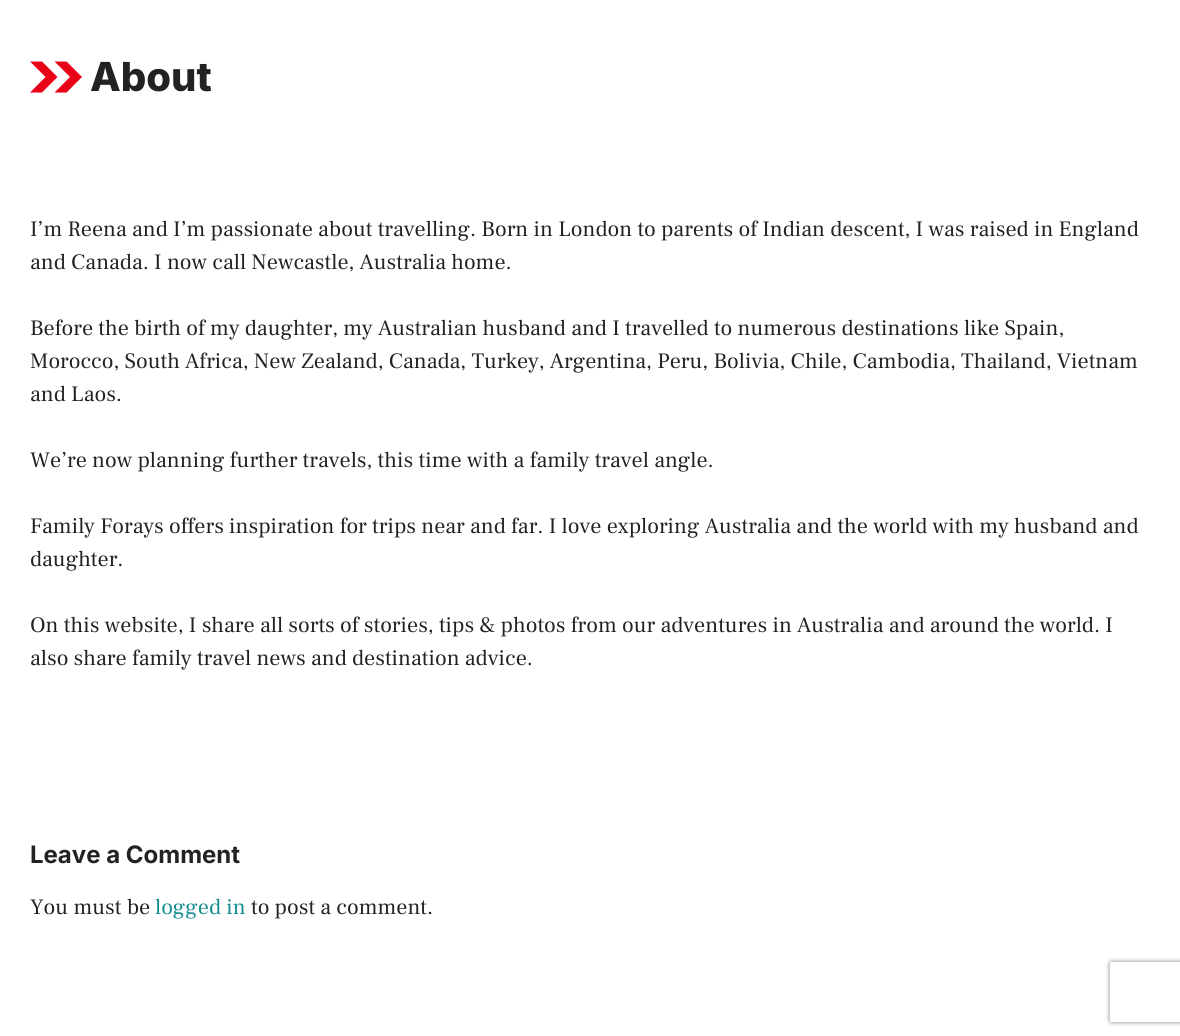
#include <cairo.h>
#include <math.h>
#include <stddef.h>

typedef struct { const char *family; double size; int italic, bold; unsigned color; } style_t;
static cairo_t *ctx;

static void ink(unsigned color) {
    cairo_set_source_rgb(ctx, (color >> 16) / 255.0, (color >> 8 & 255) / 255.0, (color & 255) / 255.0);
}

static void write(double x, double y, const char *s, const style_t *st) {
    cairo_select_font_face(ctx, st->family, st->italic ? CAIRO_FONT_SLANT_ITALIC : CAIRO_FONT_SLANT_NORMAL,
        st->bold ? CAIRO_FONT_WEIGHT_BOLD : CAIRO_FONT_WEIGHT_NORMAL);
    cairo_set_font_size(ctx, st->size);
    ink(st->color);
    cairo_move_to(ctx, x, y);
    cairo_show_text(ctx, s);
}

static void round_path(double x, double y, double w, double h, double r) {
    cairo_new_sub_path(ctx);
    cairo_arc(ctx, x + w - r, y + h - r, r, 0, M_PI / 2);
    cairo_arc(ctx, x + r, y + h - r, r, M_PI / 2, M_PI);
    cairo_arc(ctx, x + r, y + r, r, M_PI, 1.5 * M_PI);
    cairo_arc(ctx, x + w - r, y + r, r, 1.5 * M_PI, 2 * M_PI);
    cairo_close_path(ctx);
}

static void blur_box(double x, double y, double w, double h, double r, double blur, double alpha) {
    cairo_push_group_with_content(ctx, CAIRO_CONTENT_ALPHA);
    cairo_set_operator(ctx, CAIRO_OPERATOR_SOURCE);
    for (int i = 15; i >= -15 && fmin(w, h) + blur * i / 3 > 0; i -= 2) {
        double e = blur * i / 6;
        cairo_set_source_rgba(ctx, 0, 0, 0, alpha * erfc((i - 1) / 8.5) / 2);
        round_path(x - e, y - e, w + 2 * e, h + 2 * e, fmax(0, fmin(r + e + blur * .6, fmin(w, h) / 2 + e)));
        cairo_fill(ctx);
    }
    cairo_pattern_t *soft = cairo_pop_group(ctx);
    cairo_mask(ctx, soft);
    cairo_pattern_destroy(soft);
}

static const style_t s1 = {"Inter ExtraBold", 40, 0, 0, 0x222222};
static const style_t s2 = {"Frank Ruhl Libre", 22, 0, 0, 0x222222};
static const style_t s3 = {"Inter", 24, 0, 1, 0x222222};
static const style_t s4 = {"Frank Ruhl Libre", 22, 0, 0, 0x138d90};

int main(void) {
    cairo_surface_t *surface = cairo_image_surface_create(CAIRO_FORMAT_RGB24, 1180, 1036);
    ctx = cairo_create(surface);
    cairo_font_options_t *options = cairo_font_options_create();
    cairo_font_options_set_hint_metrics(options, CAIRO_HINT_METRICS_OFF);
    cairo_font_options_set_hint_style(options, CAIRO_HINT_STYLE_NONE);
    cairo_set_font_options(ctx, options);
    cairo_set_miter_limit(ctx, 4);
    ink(0xffffff);
    cairo_paint(ctx);
    ink(0xe90118);
    cairo_new_path(ctx);
    cairo_move_to(ctx, 70, 77);
    cairo_line_to(ctx, 54.5, 92.5);
    cairo_line_to(ctx, 66.5, 92.5);
    cairo_line_to(ctx, 82, 77);
    cairo_line_to(ctx, 66.5, 61.5);
    cairo_line_to(ctx, 54.5, 61.5);
    cairo_close_path(ctx);
    cairo_fill(ctx);
    cairo_new_path(ctx);
    cairo_move_to(ctx, 45.5, 77);
    cairo_line_to(ctx, 30, 92.5);
    cairo_line_to(ctx, 42, 92.5);
    cairo_line_to(ctx, 57.5, 77);
    cairo_line_to(ctx, 42, 61.5);
    cairo_line_to(ctx, 30, 61.5);
    cairo_close_path(ctx);
    cairo_fill(ctx);
    write(90, 91, "About", &s1);
    write(30, 236, "I’m Reena and I’m passionate about travelling. Born in London to parents of Indian descent, I was raised in England", &s2);
    write(30, 269, "and Canada. I now call Newcastle, Australia home.", &s2);
    write(30, 335, "Before the birth of my daughter, my Australian husband and I travelled to numerous destinations like Spain,", &s2);
    write(30, 368, "Morocco, South Africa, New Zealand, Canada, Turkey, Argentina, Peru, Bolivia, Chile, Cambodia, Thailand, Vietnam", &s2);
    write(30, 401, "and Laos.", &s2);
    write(30, 467, "We’re now planning further travels, this time with a family travel angle.", &s2);
    write(30, 533, "Family Forays offers inspiration for trips near and far. I love exploring Australia and the world with my husband and", &s2);
    write(30, 566, "daughter.", &s2);
    write(30, 632, "On this website, I share all sorts of stories, tips & photos from our adventures in Australia and around the world. I", &s2);
    write(30, 665, "also share family travel news and destination advice.", &s2);
    write(30, 863, "Leave a Comment", &s3);
    write(30, 914, "You must be", &s2);
    write(155, 914, "logged in", &s4);
    write(251, 914, "to post a comment.", &s2);
    cairo_save(ctx);
    cairo_set_fill_rule(ctx, CAIRO_FILL_RULE_EVEN_ODD);
    cairo_new_path(ctx);
    cairo_move_to(ctx, 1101, 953);
    cairo_line_to(ctx, 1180, 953);
    cairo_line_to(ctx, 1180, 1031);
    cairo_line_to(ctx, 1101, 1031);
    cairo_close_path(ctx);
    cairo_move_to(ctx, 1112, 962);
    cairo_line_to(ctx, 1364, 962);
    cairo_curve_to(ctx, 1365, 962, 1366, 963, 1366, 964);
    cairo_line_to(ctx, 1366, 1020);
    cairo_curve_to(ctx, 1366, 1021, 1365, 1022, 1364, 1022);
    cairo_line_to(ctx, 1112, 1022);
    cairo_curve_to(ctx, 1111, 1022, 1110, 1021, 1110, 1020);
    cairo_line_to(ctx, 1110, 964);
    cairo_curve_to(ctx, 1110, 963, 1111, 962, 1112, 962);
    cairo_close_path(ctx);
    cairo_clip(ctx);
    ink(0x808080);
    blur_box(1110, 962, 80, 60, 2, 2.5, 1);
    cairo_restore(ctx);
    cairo_surface_write_to_png(surface, "screenshot.png");
    cairo_font_options_destroy(options);
    cairo_destroy(ctx);
    cairo_surface_destroy(surface);
    return 0;
}
